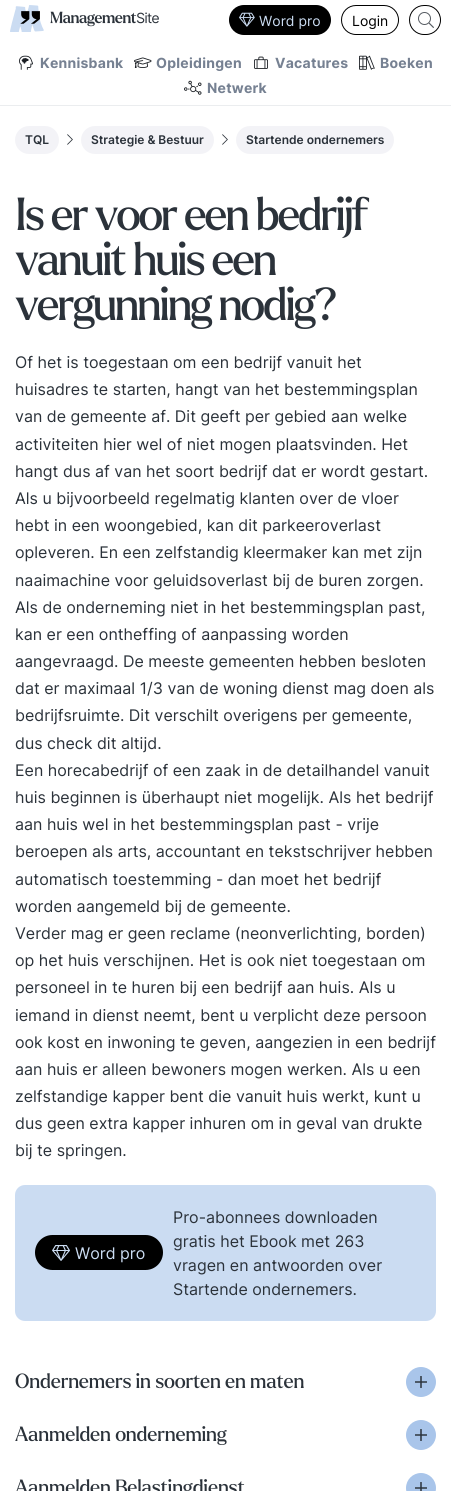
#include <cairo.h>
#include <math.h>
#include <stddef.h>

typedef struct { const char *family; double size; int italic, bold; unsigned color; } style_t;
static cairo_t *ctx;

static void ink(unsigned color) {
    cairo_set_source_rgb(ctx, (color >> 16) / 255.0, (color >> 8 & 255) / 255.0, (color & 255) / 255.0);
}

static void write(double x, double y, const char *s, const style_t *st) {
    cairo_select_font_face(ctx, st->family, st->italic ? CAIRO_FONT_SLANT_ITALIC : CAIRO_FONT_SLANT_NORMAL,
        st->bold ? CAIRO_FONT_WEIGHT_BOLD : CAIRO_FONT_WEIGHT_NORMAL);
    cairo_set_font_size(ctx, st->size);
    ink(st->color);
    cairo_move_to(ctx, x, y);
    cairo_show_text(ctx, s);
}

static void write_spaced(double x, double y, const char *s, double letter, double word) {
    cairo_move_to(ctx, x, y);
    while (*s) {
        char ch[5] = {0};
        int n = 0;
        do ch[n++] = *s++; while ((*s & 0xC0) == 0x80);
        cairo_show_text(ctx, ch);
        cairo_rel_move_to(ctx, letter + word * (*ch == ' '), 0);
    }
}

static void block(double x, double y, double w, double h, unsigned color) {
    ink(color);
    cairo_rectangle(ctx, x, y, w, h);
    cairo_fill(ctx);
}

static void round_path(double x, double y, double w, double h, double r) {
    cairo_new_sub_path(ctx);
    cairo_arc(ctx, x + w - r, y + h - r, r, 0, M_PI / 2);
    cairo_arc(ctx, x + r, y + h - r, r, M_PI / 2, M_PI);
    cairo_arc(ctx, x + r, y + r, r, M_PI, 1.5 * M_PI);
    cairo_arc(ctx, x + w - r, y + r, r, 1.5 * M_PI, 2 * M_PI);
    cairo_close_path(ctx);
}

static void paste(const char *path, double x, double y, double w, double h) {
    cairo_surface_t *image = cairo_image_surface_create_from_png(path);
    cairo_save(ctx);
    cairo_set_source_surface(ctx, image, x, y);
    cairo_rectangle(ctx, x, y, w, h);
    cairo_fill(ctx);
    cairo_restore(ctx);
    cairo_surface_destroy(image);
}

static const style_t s1 = {"Inter", 14, 0, 0, 0xcbdcf2};
static const style_t s2 = {"Inter", 14, 0, 0, 0x000000};
static const style_t s3 = {"Inter SemiBold", 12, 0, 0, 0x2b323a};
static const style_t s4 = {"Inter", 16, 0, 0, 0x2b323a};
static const style_t s5 = {"Inter", 16, 0, 0, 0xcbdcf2};

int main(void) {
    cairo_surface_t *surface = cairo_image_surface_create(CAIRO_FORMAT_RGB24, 451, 1491);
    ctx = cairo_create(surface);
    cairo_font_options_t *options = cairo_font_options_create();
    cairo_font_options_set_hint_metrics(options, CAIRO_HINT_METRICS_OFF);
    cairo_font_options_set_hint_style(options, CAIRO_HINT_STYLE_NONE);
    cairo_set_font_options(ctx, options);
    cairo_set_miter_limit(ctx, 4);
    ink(0xffffff);
    cairo_paint(ctx);
    block(0, 105, 451, 1, 0xebedef);
    paste("pic1.png", 10, 5, 149, 27);
    ink(0x000000);
    round_path(229, 5, 102, 30, 15);
    cairo_fill(ctx);
    paste("pic2.png", 239, 12, 16, 15);
    write(259, 26, "Word pro", &s1);
    round_path(341.5, 5.5, 57, 29, 14.5);
    ink(0x000000);
    cairo_set_line_width(ctx, 1);
    cairo_stroke(ctx);
    write(352, 26, "Login", &s2);
    round_path(409.5, 5.5, 31, 29, 14.5);
    cairo_stroke(ctx);
    paste("pic3.png", 418, 12, 16, 16);
    paste("pic4.png", 19, 55, 14, 15);
    cairo_select_font_face(ctx, "Inter", CAIRO_FONT_SLANT_NORMAL, CAIRO_FONT_WEIGHT_BOLD);
    ink(0x768192);
    write_spaced(40, 68, "Kennisbank", 0.25, 0);
    paste("pic5.png", 134, 57, 18, 11);
    write_spaced(156, 68, "Opleidingen", 0.25, 0);
    paste("pic6.png", 254, 56, 14, 13);
    write_spaced(275, 68, "Vacatures", 0.25, 0);
    paste("pic7.png", 359, 55, 16, 15);
    write_spaced(380, 68, "Boeken", 0.25, 0);
    paste("pic8.png", 184, 80, 18, 15);
    write_spaced(207, 93, "Netwerk", 0.25, 0);
    ink(0xf3f3f7);
    round_path(15, 126, 44, 28, 14);
    cairo_fill(ctx);
    write(25, 144, "TQL", &s3);
    paste("pic9.png", 67, 134, 6, 11);
    ink(0xf3f3f7);
    round_path(81, 126, 133, 28, 14);
    cairo_fill(ctx);
    write(91, 144, "Strategie & Bestuur", &s3);
    paste("pic9.png", 222, 134, 6, 11);
    ink(0xf3f3f7);
    round_path(236, 126, 158, 28, 14);
    cairo_fill(ctx);
    write(246, 144, "Startende ondernemers", &s3);
    cairo_select_font_face(ctx, "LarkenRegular", CAIRO_FONT_SLANT_NORMAL, CAIRO_FONT_WEIGHT_NORMAL);
    cairo_set_font_size(ctx, 45);
    write_spaced(15, 230, "Is er voor een bedrijf", -2.25, 0);
    write_spaced(15, 275, "vanuit huis een", -2.25, 0);
    write_spaced(15, 320, "vergunning nodig?", -2.25, 0);
    write(15, 368, "Of het is toegestaan om een bedrijf vanuit het", &s4);
    write(15, 395, "huisadres te starten, hangt van het bestemmingsplan", &s4);
    write(15, 422, "van de gemeente af. Dit geeft per gebied aan welke", &s4);
    write(15, 450, "activiteiten hier wel of niet mogen plaatsvinden. Het", &s4);
    write(15, 477, "hangt dus af van het soort bedrijf dat er wordt gestart.", &s4);
    write(15, 504, "Als u bijvoorbeeld regelmatig klanten over de vloer", &s4);
    write(15, 531, "hebt in een woongebied, kan dit parkeeroverlast", &s4);
    write(15, 558, "opleveren. En een zelfstandig kleermaker kan met zijn", &s4);
    write(15, 586, "naaimachine voor geluidsoverlast bij de buren zorgen.", &s4);
    write(15, 613, "Als de onderneming niet in het bestemmingsplan past,", &s4);
    write(15, 640, "kan er een ontheffing of aanpassing worden", &s4);
    write(15, 667, "aangevraagd. De meeste gemeenten hebben besloten", &s4);
    write(15, 694, "dat er maximaal 1/3 van de woning dienst mag doen als", &s4);
    write(15, 721, "bedrijfsruimte. Dit verschilt overigens per gemeente,", &s4);
    write(15, 749, "dus check dit altijd.", &s4);
    write(15, 776, "Een horecabedrijf of een zaak in de detailhandel vanuit", &s4);
    write(15, 803, "huis beginnen is überhaupt niet mogelijk. Als het bedrijf", &s4);
    write(15, 830, "aan huis wel in het bestemmingsplan past - vrije", &s4);
    write(15, 857, "beroepen als arts, accountant en tekstschrijver hebben", &s4);
    write(15, 885, "automatisch toestemming - dan moet het bedrijf", &s4);
    write(15, 912, "worden aangemeld bij de gemeente.", &s4);
    write(15, 939, "Verder mag er geen reclame (neonverlichting, borden)", &s4);
    write(15, 966, "op het huis verschijnen. Het is ook niet toegestaan om", &s4);
    write(15, 993, "personeel in te huren bij een bedrijf aan huis. Als u", &s4);
    write(15, 1021, "iemand in dienst neemt, bent u verplicht deze persoon", &s4);
    write(15, 1048, "ook kost en inwoning te geven, aangezien in een bedrijf", &s4);
    write(15, 1075, "aan huis er alleen bewoners mogen werken. Als u een", &s4);
    write(15, 1102, "zelfstandige kapper bent die vanuit huis werkt, kunt u", &s4);
    write(15, 1129, "dus geen extra kapper inhuren om in geval van drukte", &s4);
    write(15, 1156, "bij te springen.", &s4);
    ink(0xcbdcf2);
    round_path(15, 1185, 421, 136, 10);
    cairo_fill(ctx);
    ink(0x000000);
    round_path(35, 1235, 128, 35, 17.5);
    cairo_fill(ctx);
    paste("pic10.png", 52, 1245, 18, 16);
    write(75, 1259, "Word pro", &s5);
    write(173, 1223, "Pro-abonnees downloaden", &s4);
    write(173, 1247, "gratis het Ebook met 263", &s4);
    write(173, 1271, "vragen en antwoorden over", &s4);
    write(173, 1295, "Startende ondernemers.", &s4);
    cairo_select_font_face(ctx, "LarkenRegular", CAIRO_FONT_SLANT_NORMAL, CAIRO_FONT_WEIGHT_NORMAL);
    cairo_set_font_size(ctx, 20);
    write_spaced(15, 1388, "Ondernemers in soorten en maten", -0.2, 0);
    ink(0xa9c5ea);
    cairo_new_path(ctx);
    cairo_arc(ctx, 421, 1382, 15, 0, 2 * M_PI);
    cairo_fill(ctx);
    paste("pic11.png", 415, 1376, 12, 12);
    ink(0x2b323a);
    write_spaced(15, 1441, "Aanmelden onderneming", -0.2, 0);
    ink(0xa9c5ea);
    cairo_new_path(ctx);
    cairo_arc(ctx, 421, 1435, 15, 0, 2 * M_PI);
    cairo_fill(ctx);
    paste("pic11.png", 415, 1429, 12, 12);
    ink(0x2b323a);
    write_spaced(15, 1494, "Aanmelden Belastingdienst", -0.2, 0);
    ink(0xa9c5ea);
    cairo_new_path(ctx);
    cairo_arc(ctx, 421, 1488, 15, 0, 2 * M_PI);
    cairo_fill(ctx);
    paste("pic12.png", 415, 1482, 12, 9);
    cairo_surface_write_to_png(surface, "screenshot.png");
    cairo_font_options_destroy(options);
    cairo_destroy(ctx);
    cairo_surface_destroy(surface);
    return 0;
}
